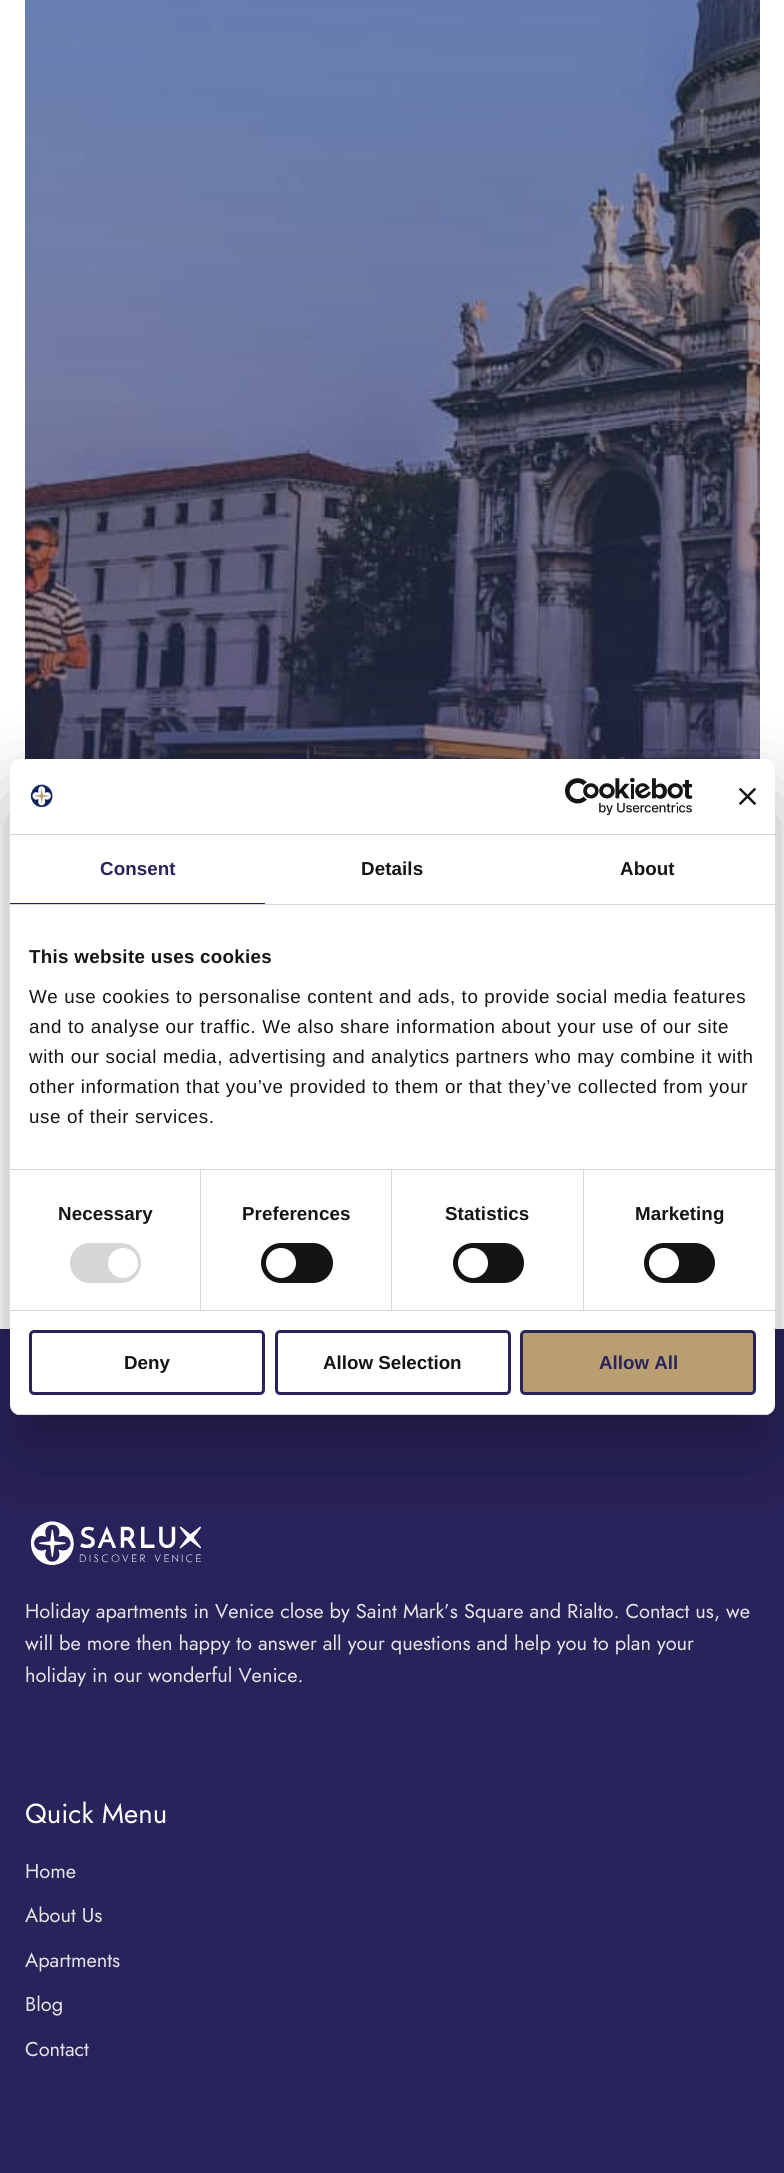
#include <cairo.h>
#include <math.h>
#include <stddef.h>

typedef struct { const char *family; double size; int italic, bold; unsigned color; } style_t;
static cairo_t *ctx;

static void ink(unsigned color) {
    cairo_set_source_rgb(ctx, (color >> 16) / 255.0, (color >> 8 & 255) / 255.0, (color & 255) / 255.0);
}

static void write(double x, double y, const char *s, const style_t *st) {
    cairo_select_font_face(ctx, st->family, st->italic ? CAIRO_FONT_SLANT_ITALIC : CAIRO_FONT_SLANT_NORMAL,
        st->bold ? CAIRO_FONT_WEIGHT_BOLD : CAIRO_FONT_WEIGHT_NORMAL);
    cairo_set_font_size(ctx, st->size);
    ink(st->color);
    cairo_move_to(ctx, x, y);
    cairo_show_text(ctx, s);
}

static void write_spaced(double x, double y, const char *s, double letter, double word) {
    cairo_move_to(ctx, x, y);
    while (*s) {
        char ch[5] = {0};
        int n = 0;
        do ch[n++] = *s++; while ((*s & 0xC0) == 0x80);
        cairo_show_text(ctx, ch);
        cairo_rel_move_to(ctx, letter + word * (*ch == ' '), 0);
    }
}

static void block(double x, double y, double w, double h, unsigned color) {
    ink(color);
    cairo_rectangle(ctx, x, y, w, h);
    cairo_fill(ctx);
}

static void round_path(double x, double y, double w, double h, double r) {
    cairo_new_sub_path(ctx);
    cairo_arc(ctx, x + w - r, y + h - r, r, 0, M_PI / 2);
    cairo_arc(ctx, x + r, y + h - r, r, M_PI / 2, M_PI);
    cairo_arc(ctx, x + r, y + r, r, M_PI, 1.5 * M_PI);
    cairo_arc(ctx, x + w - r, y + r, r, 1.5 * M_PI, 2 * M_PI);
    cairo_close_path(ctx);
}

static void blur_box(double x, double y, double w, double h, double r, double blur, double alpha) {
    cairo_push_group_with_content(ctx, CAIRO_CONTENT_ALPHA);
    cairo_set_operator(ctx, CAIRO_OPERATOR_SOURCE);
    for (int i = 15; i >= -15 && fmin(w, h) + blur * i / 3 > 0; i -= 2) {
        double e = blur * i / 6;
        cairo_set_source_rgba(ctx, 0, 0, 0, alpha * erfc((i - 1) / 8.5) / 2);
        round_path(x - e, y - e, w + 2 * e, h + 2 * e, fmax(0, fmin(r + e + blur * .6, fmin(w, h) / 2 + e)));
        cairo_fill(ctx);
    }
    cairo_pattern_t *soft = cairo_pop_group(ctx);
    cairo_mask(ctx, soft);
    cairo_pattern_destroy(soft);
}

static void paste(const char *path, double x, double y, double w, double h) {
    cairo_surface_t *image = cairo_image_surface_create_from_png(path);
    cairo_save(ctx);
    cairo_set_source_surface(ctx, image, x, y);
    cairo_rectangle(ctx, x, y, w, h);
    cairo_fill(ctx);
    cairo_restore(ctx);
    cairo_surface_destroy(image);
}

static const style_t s1 = {"Liberation Sans", 18.75, 0, 1, 0x141414};
static const style_t s2 = {"Liberation Sans", 18.75, 0, 1, 0x29235c};
static const style_t s3 = {"Jost", 20, 0, 0, 0xe5e5e5};
static const style_t s4 = {"Jost", 27.5, 0, 0, 0xffffff};

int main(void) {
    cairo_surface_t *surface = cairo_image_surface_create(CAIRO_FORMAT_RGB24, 784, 2173);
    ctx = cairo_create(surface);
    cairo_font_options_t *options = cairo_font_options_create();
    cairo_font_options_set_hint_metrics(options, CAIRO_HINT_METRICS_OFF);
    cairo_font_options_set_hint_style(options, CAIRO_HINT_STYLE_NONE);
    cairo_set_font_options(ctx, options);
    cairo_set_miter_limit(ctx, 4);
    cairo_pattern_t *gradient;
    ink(0xffffff);
    cairo_paint(ctx);
    paste("pic1.png", 25, 0, 735, 759);
    gradient = cairo_pattern_create_linear(392, -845, 393, 1279);
    cairo_pattern_add_color_stop_rgba(gradient, 0, 0.055, 0.094, 0.141, 0.18);
    cairo_pattern_add_color_stop_rgba(gradient, 1, 0.161, 0.137, 0.361, 0.65);
    cairo_set_source(ctx, gradient);
    cairo_pattern_destroy(gradient);
    cairo_rectangle(ctx, 25, 0, 735, 759);
    cairo_fill(ctx);
    block(0, 1329, 784, 844, 0x29235c);
    paste("pic5.png", 30, 1521, 171, 44);
    ink(0x000000);
    blur_box(10, 799, 765, 656, 10, 42.5, 0.3);
    ink(0xffffff);
    round_path(10, 759, 765, 656, 10);
    cairo_fill(ctx);
    block(10, 834, 765, 1, 0xd6d6d6);
    paste("pic2.png", 30, 784, 23, 24);
    paste("pic3.png", 565, 778, 128, 37);
    paste("pic4.png", 739, 788, 17, 17);
    block(10, 904, 765, 1, 0xd6d6d6);
    block(10, 903, 255, 1, 0x29235c);
    cairo_select_font_face(ctx, "Liberation Sans", CAIRO_FONT_SLANT_NORMAL, CAIRO_FONT_WEIGHT_BOLD);
    cairo_set_font_size(ctx, 18.75);
    write_spaced(100, 875, "Consent", 0.1, 0);
    ink(0x141414);
    write_spaced(361, 875, "Details", 0.1, 0);
    write_spaced(620, 875, "About", 0.1, 0);
    block(10, 1169, 765, 1, 0xd6d6d6);
    ink(0x141414);
    write_spaced(29, 963, "This website uses cookies", 0.3, 0);
    cairo_select_font_face(ctx, "Liberation Sans", CAIRO_FONT_SLANT_NORMAL, CAIRO_FONT_WEIGHT_NORMAL);
    write_spaced(29, 1003, "We use cookies to personalise content and ads, to provide social media features", 0.62, 0);
    write_spaced(29, 1033, "and to analyse our traffic. We also share information about your use of our site", 0.62, 0);
    write_spaced(29, 1063, "with our social media, advertising and analytics partners who may combine it with", 0.62, 0);
    write_spaced(29, 1093, "other information that you’ve provided to them or that they’ve collected from your", 0.62, 0);
    write_spaced(29, 1123, "use of their services.", 0.62, 0);
    block(10, 1310, 765, 1, 0xd6d6d6);
    block(200, 1170, 1, 140, 0xd6d6d6);
    cairo_select_font_face(ctx, "Liberation Sans", CAIRO_FONT_SLANT_NORMAL, CAIRO_FONT_WEIGHT_BOLD);
    ink(0x141414);
    write_spaced(58, 1220, "Necessary", 0.1, 0);
    ink(0xd6d6d6);
    round_path(70, 1243, 71, 40, 20);
    cairo_fill(ctx);
    ink(0xffffff);
    cairo_arc(ctx, 123, 1263, 15, 0, 2 * M_PI);
    cairo_fill(ctx);
    block(391, 1170, 1, 140, 0xd6d6d6);
    ink(0x141414);
    write_spaced(242, 1220, "Preferences", 0.1, 0);
    round_path(261, 1243, 72, 40, 20);
    cairo_fill(ctx);
    ink(0xffffff);
    cairo_arc(ctx, 281, 1263, 15, 0, 2 * M_PI);
    cairo_fill(ctx);
    block(583, 1170, 1, 140, 0xd6d6d6);
    ink(0x141414);
    write_spaced(445, 1220, "Statistics", 0.1, 0);
    round_path(453, 1243, 71, 40, 20);
    cairo_fill(ctx);
    ink(0xffffff);
    cairo_arc(ctx, 473, 1263, 15, 0, 2 * M_PI);
    cairo_fill(ctx);
    ink(0x141414);
    write_spaced(635, 1220, "Marketing", 0.1, 0);
    round_path(644, 1243, 71, 40, 20);
    cairo_fill(ctx);
    ink(0xffffff);
    cairo_arc(ctx, 664, 1263, 15, 0, 2 * M_PI);
    cairo_fill(ctx);
    cairo_save(ctx);
    round_path(10, 759, 765, 656, 10);
    cairo_clip(ctx);
    block(10, 1414, 765, 1, 0xd6d6d6);
    cairo_restore(ctx);
    round_path(30.5, 1331.5, 233, 62, 3.5);
    ink(0x29235c);
    cairo_set_line_width(ctx, 3);
    cairo_stroke(ctx);
    write(124, 1369, "Deny", &s1);
    round_path(276.5, 1331.5, 233, 62, 3.5);
    ink(0x29235c);
    cairo_stroke(ctx);
    write(323, 1369, "Allow Selection", &s1);
    ink(0xb99e71);
    round_path(521.5, 1331.5, 233, 62, 3.5);
    cairo_fill_preserve(ctx);
    ink(0x29235c);
    cairo_stroke(ctx);
    write(599, 1369, "Allow All", &s2);
    write(25, 1618, "Holiday apartments in Venice close by Saint Mark’s Square and Rialto. Contact us, we", &s3);
    write(25, 1650, "will be more then happy to answer all your questions and help you to plan your", &s3);
    write(25, 1682, "holiday in our wonderful Venice.", &s3);
    write(25, 1823, "Quick Menu", &s4);
    write(25, 1878, "Home", &s3);
    write(25, 1922, "About Us", &s3);
    write(25, 1967, "Apartments", &s3);
    write(25, 2011, "Blog", &s3);
    write(25, 2056, "Contact", &s3);
    cairo_surface_write_to_png(surface, "screenshot.png");
    cairo_font_options_destroy(options);
    cairo_destroy(ctx);
    cairo_surface_destroy(surface);
    return 0;
}
